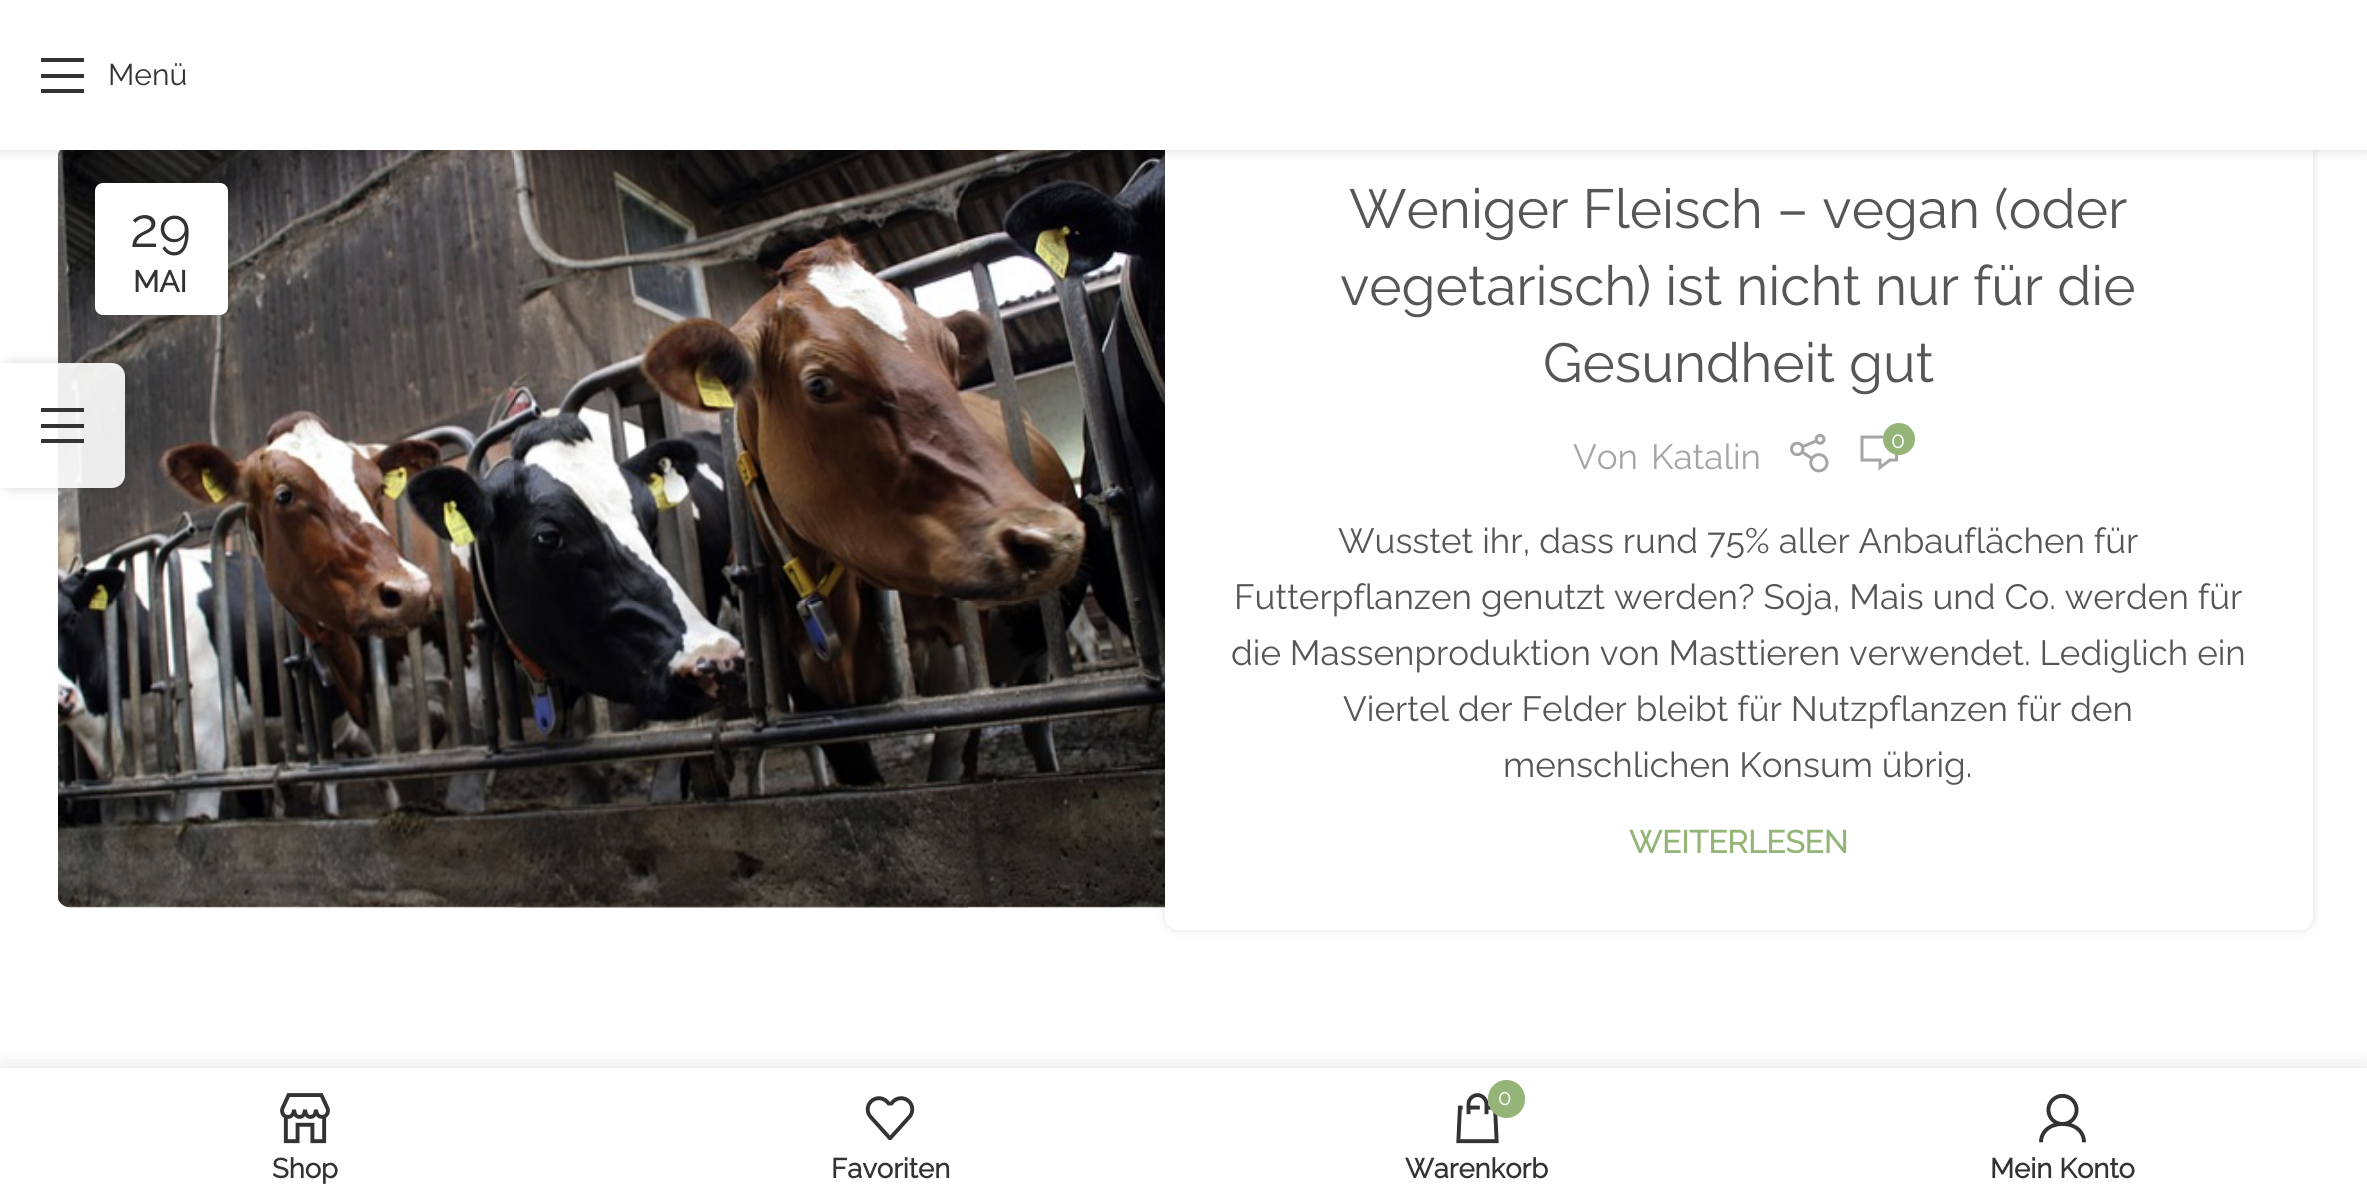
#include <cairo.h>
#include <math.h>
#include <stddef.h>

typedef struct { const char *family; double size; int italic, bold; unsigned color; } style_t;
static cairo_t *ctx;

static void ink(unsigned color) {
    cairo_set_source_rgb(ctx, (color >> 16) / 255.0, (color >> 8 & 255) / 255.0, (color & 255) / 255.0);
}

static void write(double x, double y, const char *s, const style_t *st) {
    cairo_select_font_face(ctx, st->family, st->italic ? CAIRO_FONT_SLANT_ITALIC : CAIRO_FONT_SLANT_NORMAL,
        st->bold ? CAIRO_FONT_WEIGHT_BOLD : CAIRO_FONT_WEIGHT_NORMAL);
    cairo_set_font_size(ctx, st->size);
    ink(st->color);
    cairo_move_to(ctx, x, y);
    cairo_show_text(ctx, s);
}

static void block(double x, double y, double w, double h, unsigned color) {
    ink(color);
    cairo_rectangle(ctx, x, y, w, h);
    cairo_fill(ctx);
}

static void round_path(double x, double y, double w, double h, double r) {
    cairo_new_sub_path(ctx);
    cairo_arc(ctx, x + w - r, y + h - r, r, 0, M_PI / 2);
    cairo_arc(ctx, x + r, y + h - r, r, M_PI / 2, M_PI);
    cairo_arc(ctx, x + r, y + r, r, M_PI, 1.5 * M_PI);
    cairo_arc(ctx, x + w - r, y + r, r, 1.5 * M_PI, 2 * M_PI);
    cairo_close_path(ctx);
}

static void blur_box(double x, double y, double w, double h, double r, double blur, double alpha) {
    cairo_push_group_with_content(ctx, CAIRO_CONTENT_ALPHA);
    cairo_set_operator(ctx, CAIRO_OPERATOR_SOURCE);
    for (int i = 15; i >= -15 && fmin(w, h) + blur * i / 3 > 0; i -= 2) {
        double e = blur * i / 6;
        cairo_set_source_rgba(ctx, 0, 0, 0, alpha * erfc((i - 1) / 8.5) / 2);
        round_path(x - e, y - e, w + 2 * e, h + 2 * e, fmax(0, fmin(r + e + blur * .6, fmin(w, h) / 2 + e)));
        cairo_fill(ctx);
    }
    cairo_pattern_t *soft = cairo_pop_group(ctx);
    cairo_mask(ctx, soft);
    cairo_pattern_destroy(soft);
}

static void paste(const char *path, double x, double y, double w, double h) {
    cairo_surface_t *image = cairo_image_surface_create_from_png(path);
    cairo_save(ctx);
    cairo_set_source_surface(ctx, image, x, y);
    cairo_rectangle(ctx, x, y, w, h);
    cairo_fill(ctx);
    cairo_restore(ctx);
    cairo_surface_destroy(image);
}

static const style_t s1 = {"Raleway Thin", 30, 0, 0, 0x333333};
static const style_t s2 = {"Raleway Thin", 55, 0, 0, 0x333333};
static const style_t s3 = {"Raleway", 30, 0, 1, 0x333333};
static const style_t s4 = {"Raleway Thin", 55, 0, 0, 0x565656};
static const style_t s5 = {"Raleway Thin", 23, 0, 0, 0xffffff};
static const style_t s6 = {"Raleway Thin", 35, 0, 0, 0xa5a5a5};
static const style_t s7 = {"Raleway Thin", 35, 0, 0, 0x565656};
static const style_t s8 = {"Raleway", 31.5, 0, 1, 0x95b578};
static const style_t s9 = {"Raleway", 27.5, 0, 1, 0x333333};
static const style_t s10 = {"Raleway Thin", 22, 0, 0, 0xffffff};

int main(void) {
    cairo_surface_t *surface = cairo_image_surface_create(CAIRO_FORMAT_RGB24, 2367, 1204);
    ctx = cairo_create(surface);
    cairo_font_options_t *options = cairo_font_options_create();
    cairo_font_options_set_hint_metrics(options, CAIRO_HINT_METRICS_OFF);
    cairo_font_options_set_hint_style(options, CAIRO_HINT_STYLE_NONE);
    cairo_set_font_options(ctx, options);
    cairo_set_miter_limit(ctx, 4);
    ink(0xffffff);
    cairo_paint(ctx);
    paste("pic1.png", 58, 150, 1107, 758);
    ink(0x000000);
    blur_box(1165, 120, 1148, 810, 13, 5, 0.12);
    ink(0xffffff);
    round_path(1165, 120, 1148, 810, 13);
    cairo_fill(ctx);
    ink(0x000000);
    blur_box(0, 3, 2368, 150, 0, 4, 0.1);
    blur_box(95, 183, 133, 132, 8, 11, 0.1);
    block(0, 0, 2367, 150, 0xffffff);
    ink(0x333333);
    cairo_new_path(ctx);
    cairo_move_to(ctx, 41, 62);
    cairo_line_to(ctx, 84, 62);
    cairo_line_to(ctx, 84, 58);
    cairo_line_to(ctx, 41, 58);
    cairo_close_path(ctx);
    cairo_move_to(ctx, 41, 78);
    cairo_line_to(ctx, 84, 78);
    cairo_line_to(ctx, 84, 74);
    cairo_line_to(ctx, 41, 74);
    cairo_close_path(ctx);
    cairo_move_to(ctx, 41, 93);
    cairo_line_to(ctx, 84, 93);
    cairo_line_to(ctx, 84, 89);
    cairo_line_to(ctx, 41, 89);
    cairo_close_path(ctx);
    cairo_fill(ctx);
    write(108, 85, "Menü", &s1);
    ink(0xffffff);
    round_path(95, 183, 133, 132, 8);
    cairo_fill(ctx);
    write(130, 247, "29", &s2);
    write(133, 292, "MAI", &s3);
    write(1349, 228, "Weniger Fleisch – vegan (oder", &s4);
    write(1340, 305, "vegetarisch) ist nicht nur für die", &s4);
    write(1543, 382, "Gesundheit gut", &s4);
    paste("pic2.png", 1790, 433, 39, 40);
    ink(0xa5a5a5);
    cairo_new_path(ctx);
    cairo_move_to(ctx, 1890.5, 461.5);
    cairo_line_to(ctx, 1898, 461.5);
    cairo_line_to(ctx, 1898, 435.5);
    cairo_line_to(ctx, 1860.5, 435.5);
    cairo_line_to(ctx, 1860.5, 461.5);
    cairo_line_to(ctx, 1878.5, 461.5);
    cairo_line_to(ctx, 1878.5, 470.5);
    cairo_close_path(ctx);
    cairo_move_to(ctx, 1881.5, 464.5);
    cairo_line_to(ctx, 1881.5, 458.5);
    cairo_line_to(ctx, 1863.5, 458.5);
    cairo_line_to(ctx, 1863.5, 438.5);
    cairo_line_to(ctx, 1895, 438.5);
    cairo_line_to(ctx, 1895, 458.5);
    cairo_line_to(ctx, 1889.5, 458.5);
    cairo_close_path(ctx);
    cairo_fill(ctx);
    ink(0x95b578);
    cairo_arc(ctx, 1899, 439, 16, 0, 2 * M_PI);
    cairo_fill(ctx);
    write(1891, 448, "0", &s5);
    write(1573, 469, "Von", &s6);
    write(1651, 469, "Katalin", &s6);
    write(1338, 553, "Wusstet ihr, dass rund 75% aller Anbauflächen für", &s7);
    write(1234, 609, "Futterpflanzen genutzt werden? Soja, Mais und Co. werden für", &s7);
    write(1231, 665, "die Massenproduktion von Masttieren verwendet. Lediglich ein", &s7);
    write(1343, 721, "Viertel der Felder bleibt für Nutzpflanzen für den", &s7);
    write(1503, 777, "menschlichen Konsum übrig.", &s7);
    write(1629, 853, "WEITERLESEN", &s8);
    cairo_save(ctx);
    cairo_set_fill_rule(ctx, CAIRO_FILL_RULE_EVEN_ODD);
    cairo_new_path(ctx);
    cairo_move_to(ctx, 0, 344);
    cairo_line_to(ctx, 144, 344);
    cairo_line_to(ctx, 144, 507);
    cairo_line_to(ctx, 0, 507);
    cairo_close_path(ctx);
    cairo_move_to(ctx, 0, 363);
    cairo_line_to(ctx, 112, 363);
    cairo_curve_to(ctx, 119, 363, 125, 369, 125, 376);
    cairo_line_to(ctx, 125, 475);
    cairo_curve_to(ctx, 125, 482, 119, 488, 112, 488);
    cairo_line_to(ctx, 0, 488);
    cairo_close_path(ctx);
    cairo_clip(ctx);
    ink(0x000000);
    blur_box(0, 363, 125, 125, 13, 6, 0.17);
    cairo_restore(ctx);
    cairo_set_source_rgba(ctx, 1, 1, 1, 0.9);
    cairo_new_path(ctx);
    cairo_move_to(ctx, 0, 363);
    cairo_line_to(ctx, 112, 363);
    cairo_curve_to(ctx, 119, 363, 125, 369, 125, 376);
    cairo_line_to(ctx, 125, 475);
    cairo_curve_to(ctx, 125, 482, 119, 488, 112, 488);
    cairo_line_to(ctx, 0, 488);
    cairo_close_path(ctx);
    cairo_fill(ctx);
    ink(0x333333);
    cairo_new_path(ctx);
    cairo_move_to(ctx, 41, 412);
    cairo_line_to(ctx, 84, 412);
    cairo_line_to(ctx, 84, 408);
    cairo_line_to(ctx, 41, 408);
    cairo_close_path(ctx);
    cairo_move_to(ctx, 41, 428);
    cairo_line_to(ctx, 84, 428);
    cairo_line_to(ctx, 84, 424);
    cairo_line_to(ctx, 41, 424);
    cairo_close_path(ctx);
    cairo_move_to(ctx, 41, 443);
    cairo_line_to(ctx, 84, 443);
    cairo_line_to(ctx, 84, 439);
    cairo_line_to(ctx, 41, 439);
    cairo_close_path(ctx);
    cairo_fill(ctx);
    ink(0x000000);
    blur_box(0, 1068, 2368, 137, 0, 11, 0.12);
    block(0, 1068, 2367, 136, 0xffffff);
    paste("pic3.png", 280, 1093, 50, 51);
    write(272, 1178, "Shop", &s9);
    paste("pic4.png", 865, 1096, 50, 44);
    write(831, 1178, "Favoriten", &s9);
    paste("pic5.png", 1456, 1093, 43, 51);
    ink(0x95b578);
    round_path(1488, 1080, 37, 38, 18.5);
    cairo_fill(ctx);
    write(1498, 1105, "0", &s10);
    write(1405, 1178, "Warenkorb", &s9);
    paste("pic6.png", 2039, 1093, 47, 50);
    write(1990, 1178, "Mein Konto", &s9);
    cairo_surface_write_to_png(surface, "screenshot.png");
    cairo_font_options_destroy(options);
    cairo_destroy(ctx);
    cairo_surface_destroy(surface);
    return 0;
}
